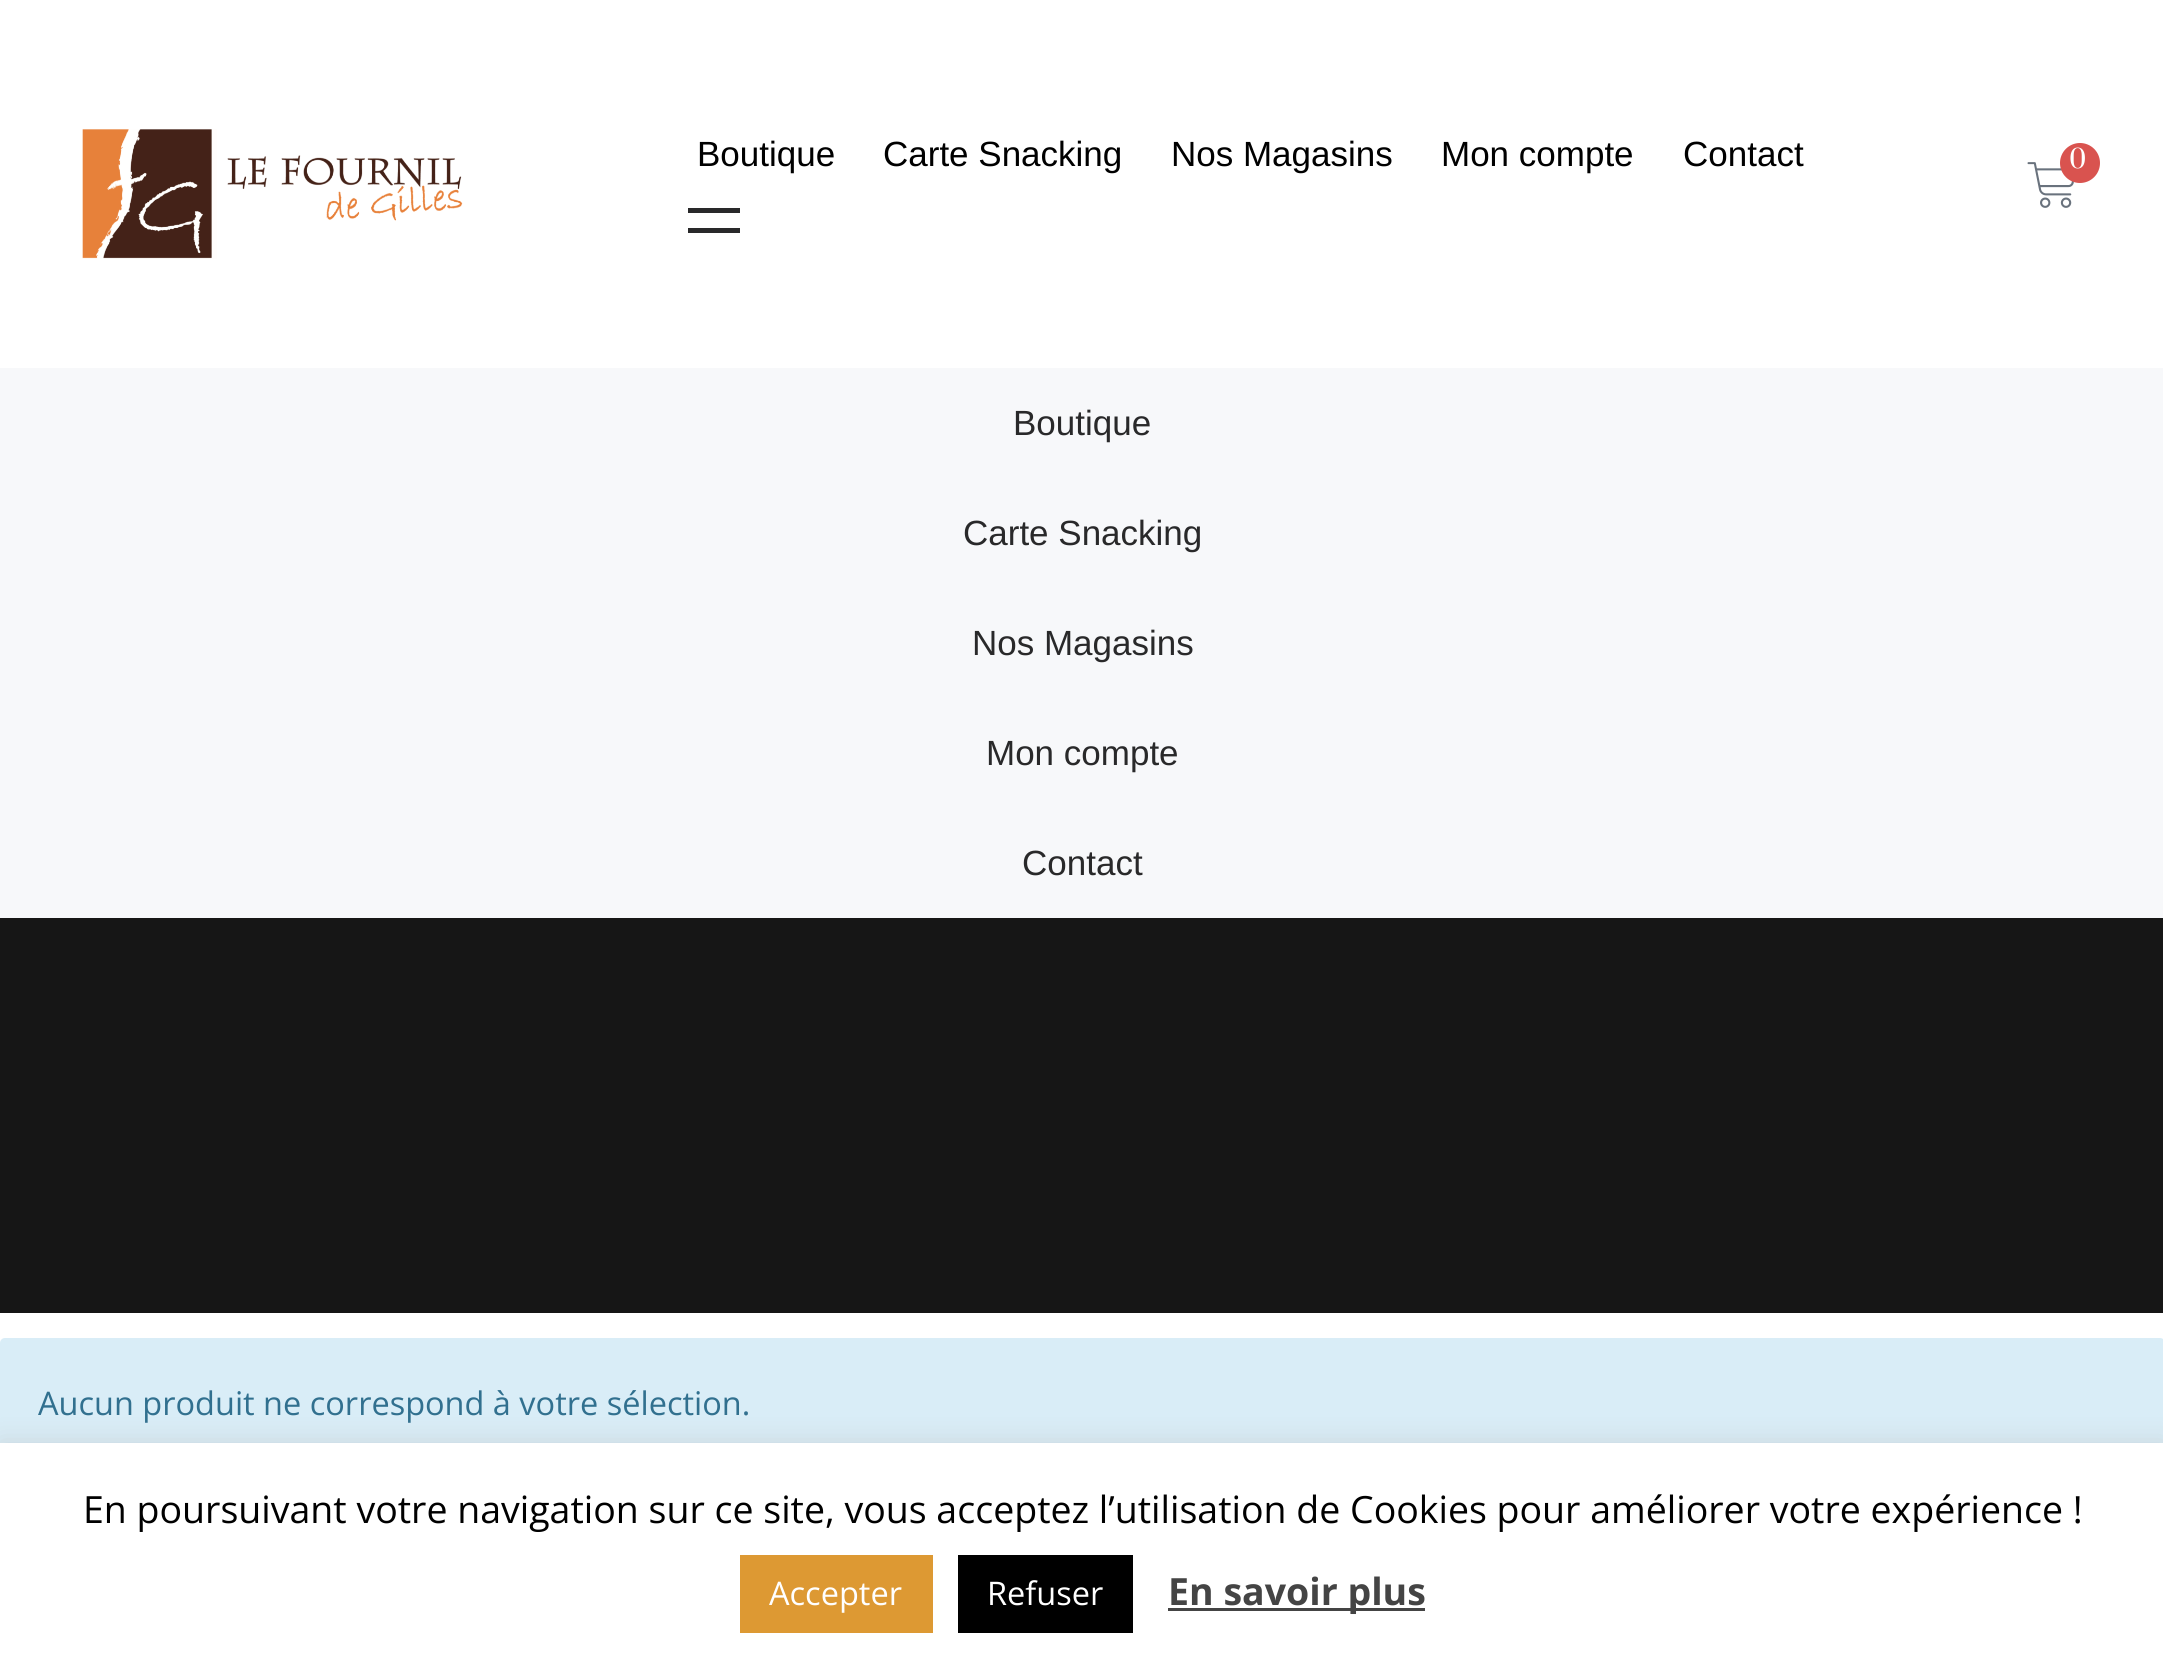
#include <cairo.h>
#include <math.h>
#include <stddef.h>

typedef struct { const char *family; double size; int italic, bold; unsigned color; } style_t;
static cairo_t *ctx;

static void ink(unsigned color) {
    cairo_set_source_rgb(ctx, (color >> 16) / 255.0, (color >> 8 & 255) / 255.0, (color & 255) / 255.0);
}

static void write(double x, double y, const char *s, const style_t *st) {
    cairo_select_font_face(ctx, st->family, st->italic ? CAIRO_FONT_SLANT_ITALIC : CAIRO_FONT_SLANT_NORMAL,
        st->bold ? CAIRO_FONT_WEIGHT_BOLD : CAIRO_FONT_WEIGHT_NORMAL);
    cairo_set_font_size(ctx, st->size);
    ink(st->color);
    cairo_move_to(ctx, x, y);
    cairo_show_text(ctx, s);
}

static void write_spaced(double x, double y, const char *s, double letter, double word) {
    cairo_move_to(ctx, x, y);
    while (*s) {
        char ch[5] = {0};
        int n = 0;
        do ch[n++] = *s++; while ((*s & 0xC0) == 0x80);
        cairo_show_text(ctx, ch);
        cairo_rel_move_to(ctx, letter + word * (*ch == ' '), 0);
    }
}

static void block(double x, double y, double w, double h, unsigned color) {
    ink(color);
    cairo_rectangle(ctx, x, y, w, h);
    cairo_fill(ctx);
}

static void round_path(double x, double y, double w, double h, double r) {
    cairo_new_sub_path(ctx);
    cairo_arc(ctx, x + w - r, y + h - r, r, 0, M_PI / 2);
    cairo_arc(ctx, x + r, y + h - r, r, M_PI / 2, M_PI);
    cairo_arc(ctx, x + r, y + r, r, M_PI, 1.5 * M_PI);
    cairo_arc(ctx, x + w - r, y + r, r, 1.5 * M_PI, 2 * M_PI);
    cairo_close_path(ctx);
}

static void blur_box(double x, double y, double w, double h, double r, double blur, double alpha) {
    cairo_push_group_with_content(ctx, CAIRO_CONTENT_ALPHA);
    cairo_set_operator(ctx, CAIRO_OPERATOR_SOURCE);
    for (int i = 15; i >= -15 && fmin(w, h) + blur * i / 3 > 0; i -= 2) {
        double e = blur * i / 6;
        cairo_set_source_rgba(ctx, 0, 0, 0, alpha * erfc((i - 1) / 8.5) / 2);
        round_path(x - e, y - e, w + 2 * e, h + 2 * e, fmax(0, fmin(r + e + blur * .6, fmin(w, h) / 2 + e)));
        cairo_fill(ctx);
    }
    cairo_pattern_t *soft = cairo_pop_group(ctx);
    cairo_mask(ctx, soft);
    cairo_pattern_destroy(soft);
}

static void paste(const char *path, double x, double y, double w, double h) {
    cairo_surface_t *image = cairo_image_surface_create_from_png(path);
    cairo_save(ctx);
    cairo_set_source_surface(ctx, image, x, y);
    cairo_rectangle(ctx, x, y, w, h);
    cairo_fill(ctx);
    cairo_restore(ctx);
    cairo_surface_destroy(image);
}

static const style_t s1 = {"Liberation Sans", 35, 0, 0, 0x000000};
static const style_t s2 = {"Liberation Sans", 35, 0, 0, 0x29292a};
static const style_t s3 = {"Open Sans", 32.5, 0, 0, 0x31708f};
static const style_t s4 = {"Open Sans", 37.5, 0, 0, 0x000000};
static const style_t s5 = {"Open Sans", 32.5, 0, 0, 0xffffff};
static const style_t s6 = {"Open Sans", 37.5, 0, 1, 0x444444};

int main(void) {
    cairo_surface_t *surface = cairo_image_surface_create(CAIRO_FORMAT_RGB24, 2163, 1674);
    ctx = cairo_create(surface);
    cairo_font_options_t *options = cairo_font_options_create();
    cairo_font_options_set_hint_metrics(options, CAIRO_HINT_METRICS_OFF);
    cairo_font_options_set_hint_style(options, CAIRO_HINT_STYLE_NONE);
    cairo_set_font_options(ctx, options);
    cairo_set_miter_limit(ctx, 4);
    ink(0xffffff);
    cairo_paint(ctx);
    paste("pic1.png", 82, 129, 381, 130);
    write(697, 166, "Boutique", &s1);
    write(883, 166, "Carte Snacking", &s1);
    write(1171, 166, "Nos Magasins", &s1);
    write(1441, 166, "Mon compte", &s1);
    write(1683, 166, "Contact", &s1);
    block(688, 208, 52, 5, 0x29292a);
    block(688, 228, 52, 5, 0x29292a);
    block(0, 368, 2163, 550, 0xf7f8fa);
    write(1013, 435, "Boutique", &s2);
    write(963, 545, "Carte Snacking", &s2);
    write(972, 655, "Nos Magasins", &s2);
    write(986, 765, "Mon compte", &s2);
    write(1022, 875, "Contact", &s2);
    paste("pic2.png", 2027, 162, 47, 46);
    ink(0xd9534f);
    cairo_arc(ctx, 2080, 163, 20, 0, 2 * M_PI);
    cairo_fill(ctx);
    cairo_select_font_face(ctx, "Prata", CAIRO_FONT_SLANT_NORMAL, CAIRO_FONT_WEIGHT_NORMAL);
    cairo_set_font_size(ctx, 25);
    ink(0xffffff);
    write_spaced(2069, 168, "0", 5, 0);
    block(0, 918, 2163, 395, 0x161616);
    ink(0xd9edf7);
    round_path(0, 1338, 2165, 135, 5);
    cairo_fill(ctx);
    write(38, 1415, "Aucun produit ne correspond à votre sélection.", &s3);
    ink(0xacabab);
    blur_box(0, 1440, 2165, 233, 0, 12.5, 0.3);
    block(0, 1443, 2163, 231, 0xffffff);
    write(83, 1523, "En poursuivant votre navigation sur ce site, vous acceptez l’utilisation de Cookies pour améliorer votre expérience !", &s4);
    block(740, 1555, 193, 78, 0xdd9933);
    write(769, 1605, "Accepter", &s5);
    block(958, 1555, 175, 78, 0x000000);
    write(987, 1605, "Refuser", &s5);
    block(1168, 1608, 257, 3, 0x444444);
    write(1168, 1605, "En savoir plus", &s6);
    cairo_surface_write_to_png(surface, "screenshot.png");
    cairo_font_options_destroy(options);
    cairo_destroy(ctx);
    cairo_surface_destroy(surface);
    return 0;
}
